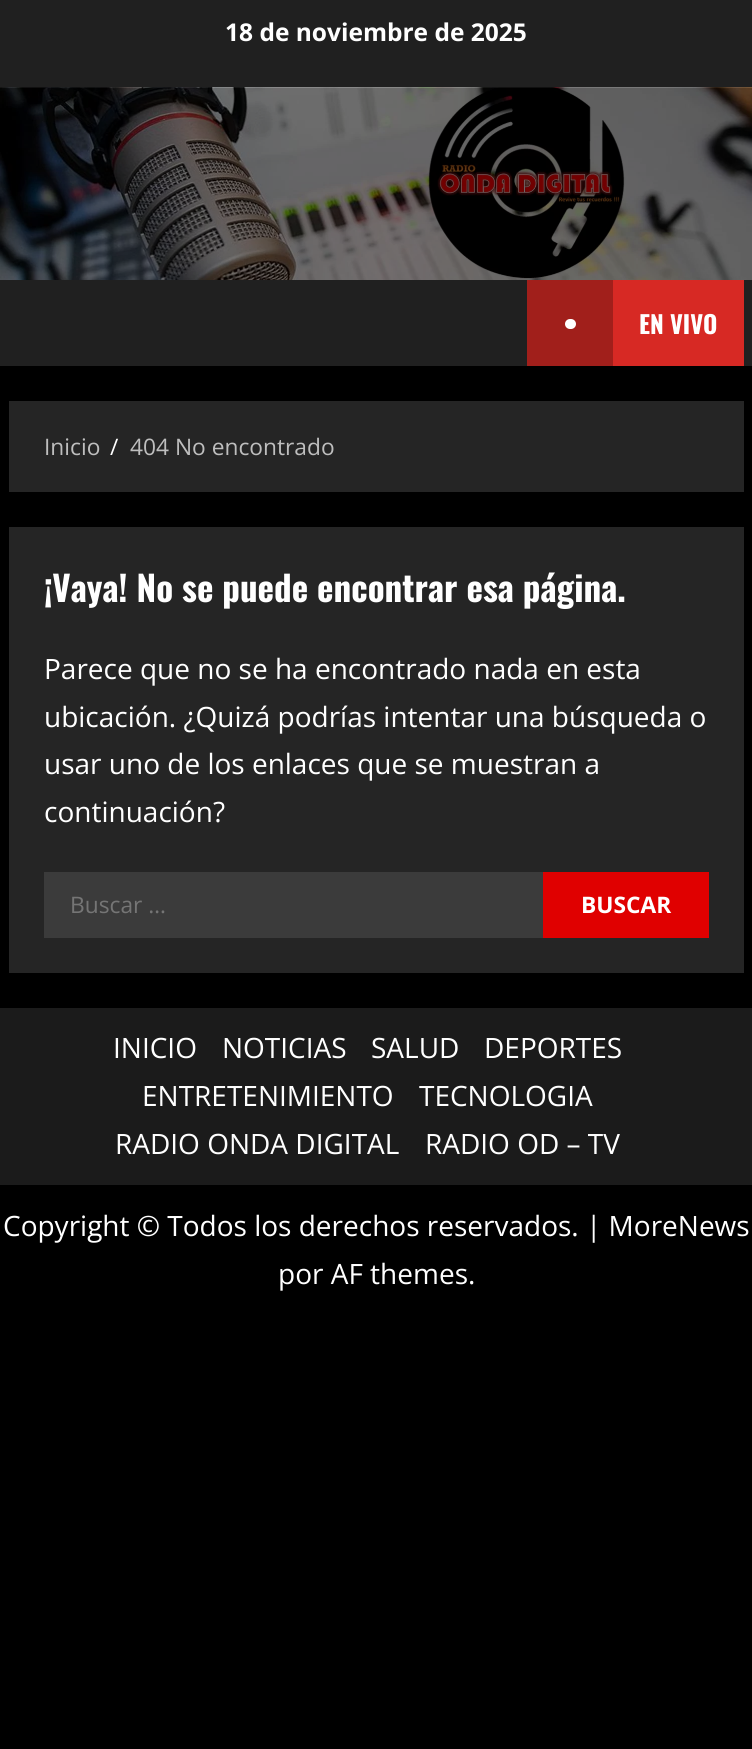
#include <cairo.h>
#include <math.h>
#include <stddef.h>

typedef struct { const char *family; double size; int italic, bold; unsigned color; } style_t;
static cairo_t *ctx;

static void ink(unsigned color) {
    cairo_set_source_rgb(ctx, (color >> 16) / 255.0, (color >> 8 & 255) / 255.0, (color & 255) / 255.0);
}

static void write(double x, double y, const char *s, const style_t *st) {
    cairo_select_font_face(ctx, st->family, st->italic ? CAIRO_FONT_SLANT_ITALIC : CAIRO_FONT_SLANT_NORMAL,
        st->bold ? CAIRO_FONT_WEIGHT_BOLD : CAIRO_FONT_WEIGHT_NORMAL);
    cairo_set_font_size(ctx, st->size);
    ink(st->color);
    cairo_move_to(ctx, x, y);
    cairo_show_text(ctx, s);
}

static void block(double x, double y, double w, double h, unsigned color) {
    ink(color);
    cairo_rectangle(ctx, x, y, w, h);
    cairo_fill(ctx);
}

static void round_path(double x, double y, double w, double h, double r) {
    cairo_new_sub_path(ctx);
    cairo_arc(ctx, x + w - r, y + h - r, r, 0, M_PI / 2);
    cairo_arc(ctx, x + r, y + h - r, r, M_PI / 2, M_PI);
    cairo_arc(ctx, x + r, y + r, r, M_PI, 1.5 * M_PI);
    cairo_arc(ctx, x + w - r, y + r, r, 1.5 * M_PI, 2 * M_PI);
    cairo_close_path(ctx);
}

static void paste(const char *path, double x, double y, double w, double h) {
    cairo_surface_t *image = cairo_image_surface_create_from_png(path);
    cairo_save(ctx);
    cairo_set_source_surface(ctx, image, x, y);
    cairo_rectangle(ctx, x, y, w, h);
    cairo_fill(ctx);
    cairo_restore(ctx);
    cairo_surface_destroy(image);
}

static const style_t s1 = {"Open Sans", 24.5, 0, 1, 0xffffff};
static const style_t s2 = {"Oswald", 24.5, 0, 1, 0xffffff};
static const style_t s3 = {"Open Sans", 22.75, 0, 0, 0xbebebe};
static const style_t s4 = {"Open Sans", 22.75, 0, 0, 0xffffff};
static const style_t s5 = {"Oswald", 35, 0, 1, 0xffffff};
static const style_t s6 = {"Open Sans", 28, 0, 0, 0xffffff};
static const style_t s7 = {"Open Sans", 22.75, 0, 0, 0x757575};
static const style_t s8 = {"Open Sans", 22.75, 0, 1, 0xffffff};

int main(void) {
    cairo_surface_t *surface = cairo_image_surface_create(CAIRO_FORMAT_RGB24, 752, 1749);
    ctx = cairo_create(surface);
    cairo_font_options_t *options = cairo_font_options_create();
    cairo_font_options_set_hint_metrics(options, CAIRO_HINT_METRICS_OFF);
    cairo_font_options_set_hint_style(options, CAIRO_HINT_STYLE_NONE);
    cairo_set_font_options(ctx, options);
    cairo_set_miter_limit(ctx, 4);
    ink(0x000000);
    cairo_paint(ctx);
    block(0, 0, 752, 88, 0x202020);
    write(225, 41, "18 de noviembre de 2025", &s1);
    paste("pic1.png", 0, 87, 752, 193);
    block(0, 280, 752, 86, 0x202020);
    block(613, 280, 131, 86, 0xd72924);
    block(527, 280, 86, 86, 0xa11f1b);
    ink(0xffffff);
    round_path(565, 319, 11, 10, 5);
    cairo_fill(ctx);
    write(639, 334, "EN VIVO", &s2);
    block(9, 401, 735, 91, 0x252525);
    write(44, 455, "Inicio", &s3);
    write(110, 455, "/", &s4);
    write(130, 455, "404 No encontrado", &s3);
    block(9, 527, 735, 446, 0x252525);
    write(44, 602, "¡Vaya! No se puede encontrar esa página.", &s5);
    write(44, 679, "Parece que no se ha encontrado nada en esta", &s6);
    write(44, 727, "ubicación. ¿Quizá podrías intentar una búsqueda o", &s6);
    write(44, 774, "usar uno de los enlaces que se muestran a", &s6);
    write(44, 822, "continuación?", &s6);
    block(44, 872, 499, 66, 0x3b3b3b);
    write(70, 913, "Buscar …", &s7);
    block(543, 872, 166, 66, 0xe00000);
    write(581, 913, "BUSCAR", &s8);
    block(0, 1008, 752, 177, 0x1b1b1b);
    write(113, 1058, "INICIO", &s6);
    write(222, 1058, "NOTICIAS", &s6);
    write(371, 1058, "SALUD", &s6);
    write(484, 1058, "DEPORTES", &s6);
    write(142, 1106, "ENTRETENIMIENTO", &s6);
    write(419, 1106, "TECNOLOGIA", &s6);
    write(115, 1154, "RADIO ONDA DIGITAL", &s6);
    write(425, 1154, "RADIO OD – TV", &s6);
    write(3, 1236, "Copyright © Todos los derechos reservados. | MoreNews", &s6);
    write(278, 1284, "por AF themes.", &s6);
    cairo_surface_write_to_png(surface, "screenshot.png");
    cairo_font_options_destroy(options);
    cairo_destroy(ctx);
    cairo_surface_destroy(surface);
    return 0;
}
